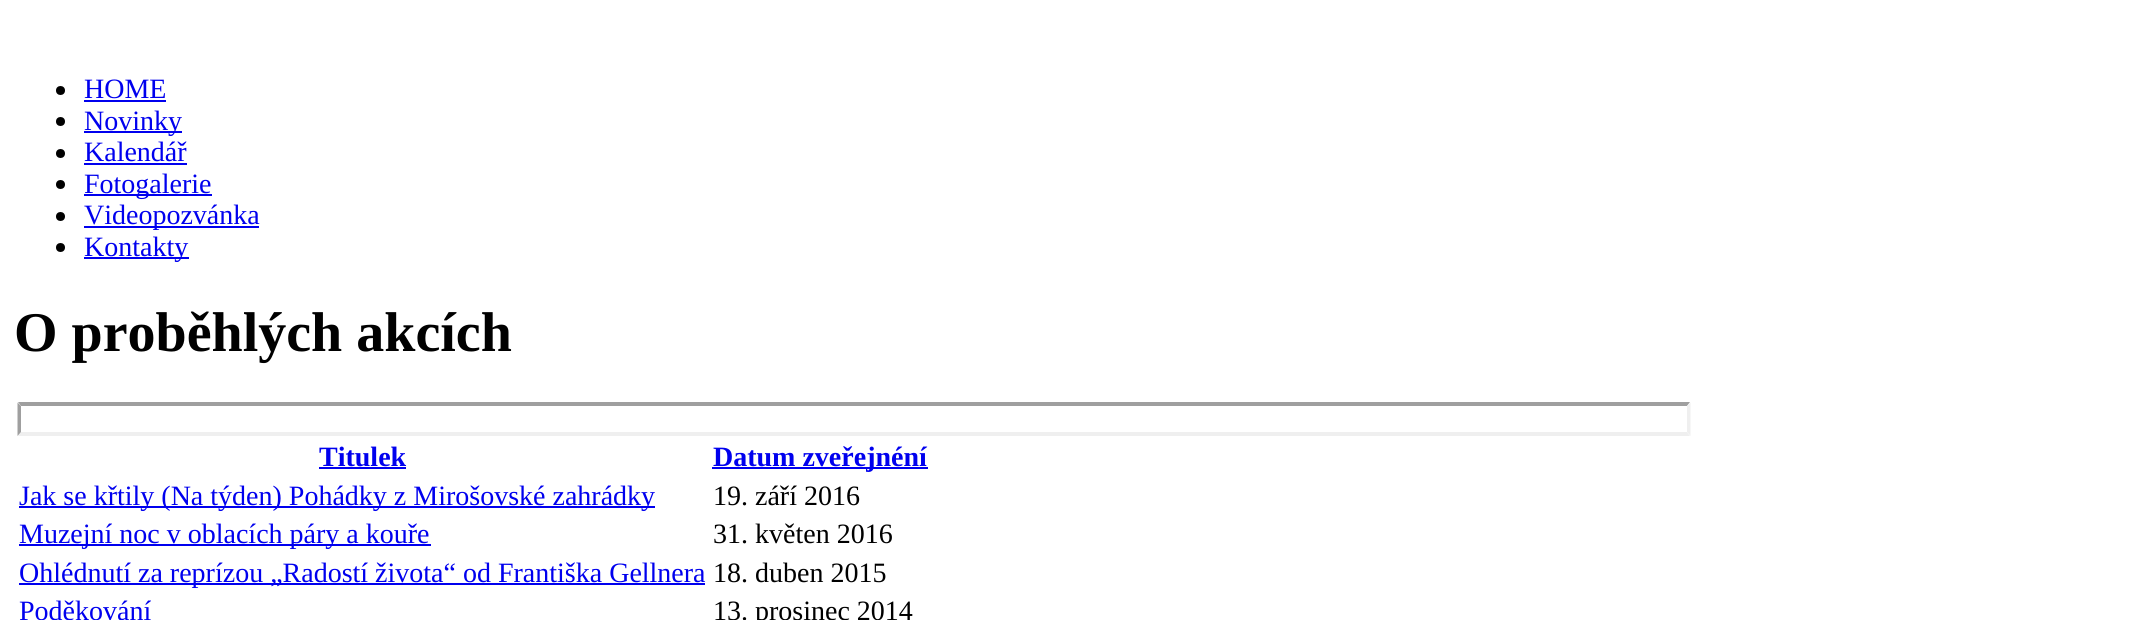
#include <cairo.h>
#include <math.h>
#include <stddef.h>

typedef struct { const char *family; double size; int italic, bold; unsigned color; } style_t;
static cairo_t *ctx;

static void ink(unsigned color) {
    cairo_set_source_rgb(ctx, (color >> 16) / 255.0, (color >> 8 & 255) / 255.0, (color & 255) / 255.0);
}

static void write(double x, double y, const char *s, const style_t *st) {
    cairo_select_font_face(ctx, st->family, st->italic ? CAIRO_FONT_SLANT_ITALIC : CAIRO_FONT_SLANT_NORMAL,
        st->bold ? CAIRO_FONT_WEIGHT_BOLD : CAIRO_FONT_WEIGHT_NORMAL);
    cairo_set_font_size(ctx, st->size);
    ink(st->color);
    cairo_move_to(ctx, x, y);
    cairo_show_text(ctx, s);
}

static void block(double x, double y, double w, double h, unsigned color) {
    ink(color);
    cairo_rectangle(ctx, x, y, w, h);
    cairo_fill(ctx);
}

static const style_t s1 = {"Liberation Serif", 28, 0, 0, 0x0000ee};
static const style_t s2 = {"Liberation Serif", 56, 0, 1, 0x000000};
static const style_t s3 = {"Liberation Serif", 28, 0, 1, 0x0000ee};
static const style_t s4 = {"Liberation Serif", 28, 0, 0, 0x000000};

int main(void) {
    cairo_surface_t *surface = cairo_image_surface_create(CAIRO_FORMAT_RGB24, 2131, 620);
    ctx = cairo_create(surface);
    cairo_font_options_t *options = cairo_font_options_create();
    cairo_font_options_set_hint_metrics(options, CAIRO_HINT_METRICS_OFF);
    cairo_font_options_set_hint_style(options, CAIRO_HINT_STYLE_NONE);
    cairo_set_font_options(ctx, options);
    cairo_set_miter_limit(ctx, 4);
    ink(0xffffff);
    cairo_paint(ctx);
    ink(0x000000);
    cairo_arc(ctx, 60.5, 90.5, 4.5, 0, 2 * M_PI);
    cairo_fill(ctx);
    write(84, 98, "HOME", &s1);
    block(84, 100, 82, 2, 0x0000ee);
    ink(0x000000);
    cairo_new_path(ctx);
    cairo_arc(ctx, 60.5, 121.5, 4.5, 0, 2 * M_PI);
    cairo_fill(ctx);
    block(84, 131, 98, 2, 0x0000ee);
    write(84, 130, "Novinky", &s1);
    ink(0x000000);
    cairo_new_path(ctx);
    cairo_arc(ctx, 60.5, 153.5, 4.5, 0, 2 * M_PI);
    cairo_fill(ctx);
    write(84, 161, "Kalendář", &s1);
    block(84, 163, 103, 2, 0x0000ee);
    ink(0x000000);
    cairo_new_path(ctx);
    cairo_arc(ctx, 60.5, 184.5, 4.5, 0, 2 * M_PI);
    cairo_fill(ctx);
    block(84, 194, 128, 2, 0x0000ee);
    write(84, 193, "Fotogalerie", &s1);
    ink(0x000000);
    cairo_new_path(ctx);
    cairo_arc(ctx, 60.5, 216.5, 4.5, 0, 2 * M_PI);
    cairo_fill(ctx);
    block(84, 226, 175, 2, 0x0000ee);
    write(84, 224, "Videopozvánka", &s1);
    ink(0x000000);
    cairo_new_path(ctx);
    cairo_arc(ctx, 60.5, 247.5, 4.5, 0, 2 * M_PI);
    cairo_fill(ctx);
    block(84, 257, 105, 2, 0x0000ee);
    write(84, 256, "Kontakty", &s1);
    write(14, 351, "O proběhlých akcích", &s2);
    ink(0x9f9f9f);
    cairo_new_path(ctx);
    cairo_move_to(ctx, 18, 402);
    cairo_line_to(ctx, 1690, 402);
    cairo_line_to(ctx, 1687, 406);
    cairo_line_to(ctx, 21, 406);
    cairo_close_path(ctx);
    cairo_fill(ctx);
    ink(0xefefef);
    cairo_new_path(ctx);
    cairo_move_to(ctx, 1690.5, 402.5);
    cairo_line_to(ctx, 1690.5, 436);
    cairo_line_to(ctx, 1687, 432);
    cairo_line_to(ctx, 1687, 406);
    cairo_close_path(ctx);
    cairo_fill(ctx);
    cairo_new_path(ctx);
    cairo_move_to(ctx, 1690, 436);
    cairo_line_to(ctx, 18, 436);
    cairo_line_to(ctx, 21, 432);
    cairo_line_to(ctx, 1687, 432);
    cairo_close_path(ctx);
    cairo_fill(ctx);
    ink(0x9f9f9f);
    cairo_new_path(ctx);
    cairo_move_to(ctx, 17.5, 436);
    cairo_line_to(ctx, 17.5, 402.5);
    cairo_line_to(ctx, 21, 406);
    cairo_line_to(ctx, 21, 432);
    cairo_close_path(ctx);
    cairo_fill(ctx);
    write(319, 466, "Titulek", &s3);
    block(319, 467, 87, 2, 0x0000ee);
    block(712, 467, 216, 2, 0x0000ee);
    write(713, 466, "Datum zveřejnéní", &s3);
    block(19, 506, 636, 2, 0x0000ee);
    write(19, 505, "Jak se křtily (Na týden) Pohádky z Mirošovské zahrádky", &s1);
    write(713, 505, "19. září 2016", &s4);
    block(19, 544, 412, 2, 0x0000ee);
    write(19, 543, "Muzejní noc v oblacích páry a kouře", &s1);
    write(713, 543, "31. květen 2016", &s4);
    block(19, 583, 686, 2, 0x0000ee);
    write(19, 582, "Ohlédnutí za reprízou „Radostí života“ od Františka Gellnera", &s1);
    write(713, 582, "18. duben 2015", &s4);
    write(19, 620, "Poděkování", &s1);
    write(713, 620, "13. prosinec 2014", &s4);
    cairo_surface_write_to_png(surface, "screenshot.png");
    cairo_font_options_destroy(options);
    cairo_destroy(ctx);
    cairo_surface_destroy(surface);
    return 0;
}
